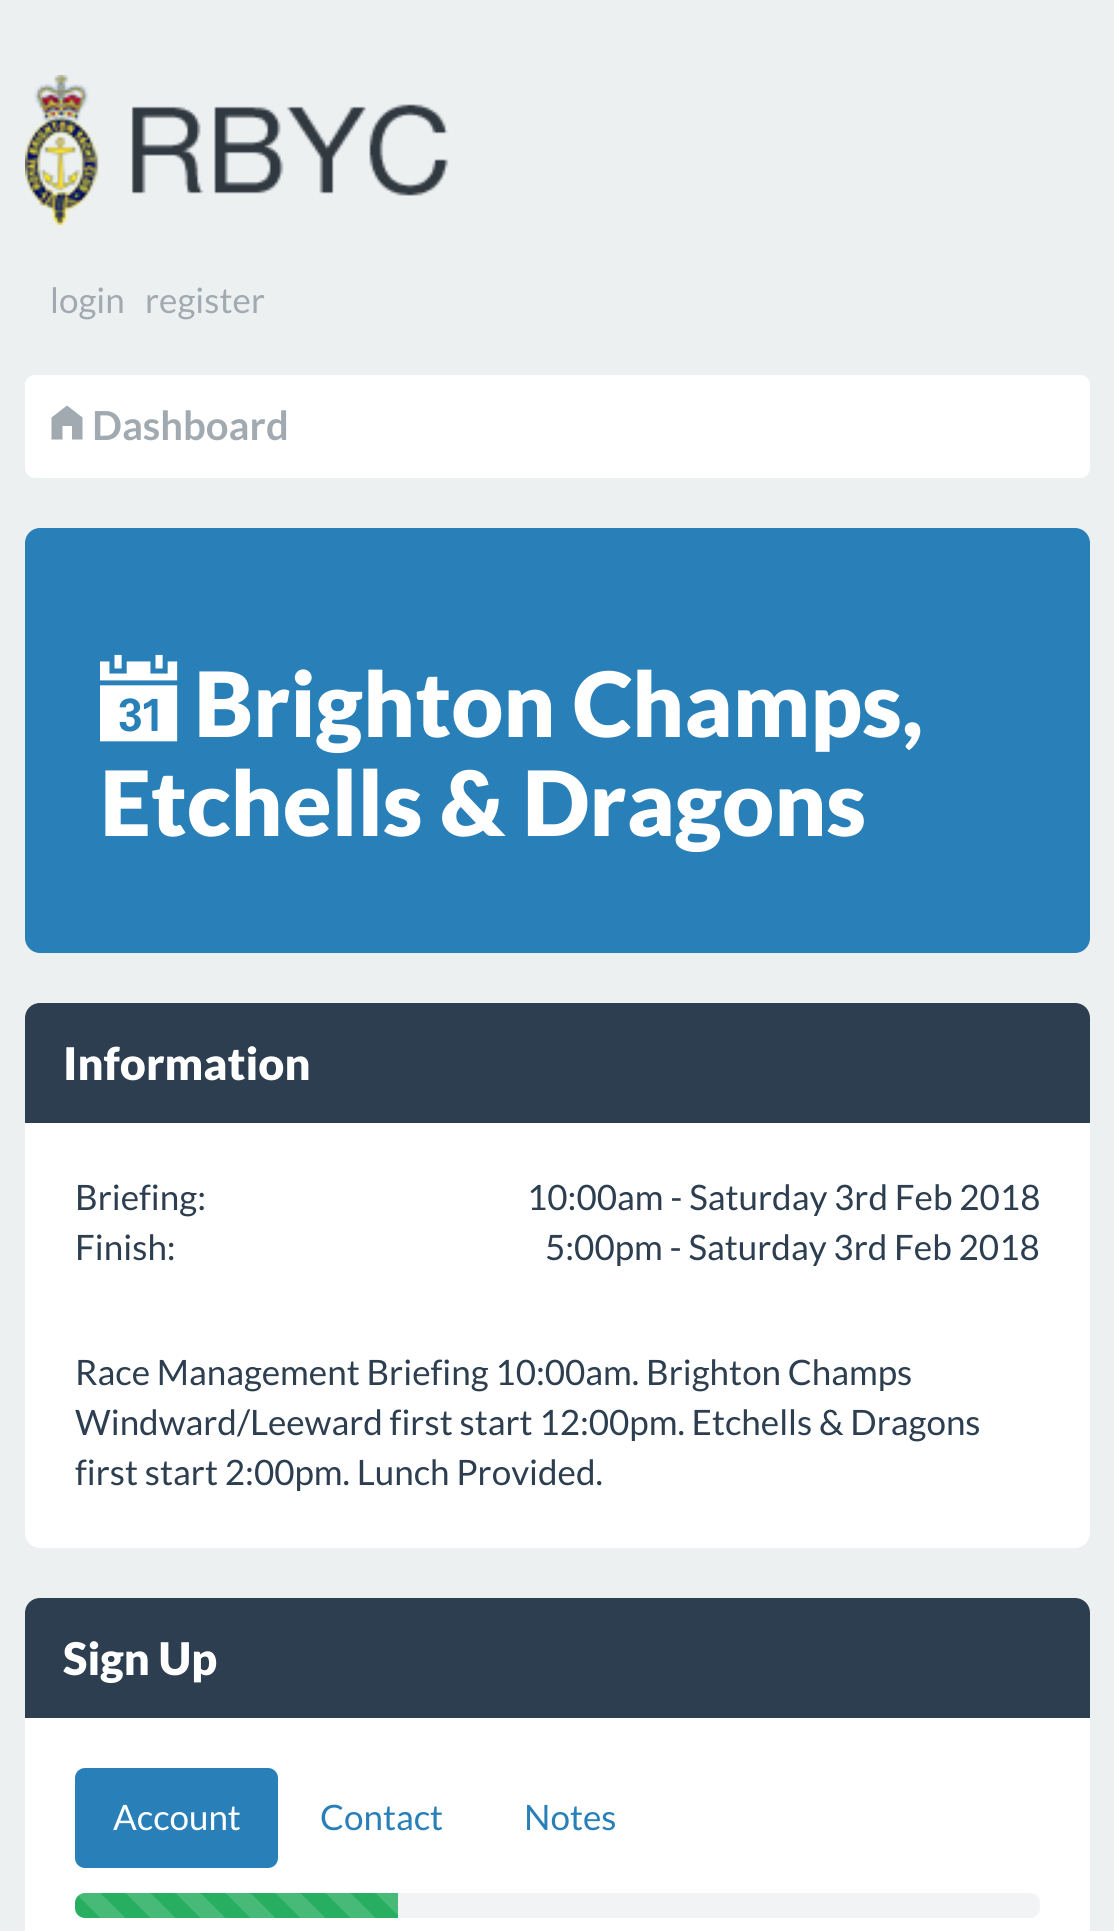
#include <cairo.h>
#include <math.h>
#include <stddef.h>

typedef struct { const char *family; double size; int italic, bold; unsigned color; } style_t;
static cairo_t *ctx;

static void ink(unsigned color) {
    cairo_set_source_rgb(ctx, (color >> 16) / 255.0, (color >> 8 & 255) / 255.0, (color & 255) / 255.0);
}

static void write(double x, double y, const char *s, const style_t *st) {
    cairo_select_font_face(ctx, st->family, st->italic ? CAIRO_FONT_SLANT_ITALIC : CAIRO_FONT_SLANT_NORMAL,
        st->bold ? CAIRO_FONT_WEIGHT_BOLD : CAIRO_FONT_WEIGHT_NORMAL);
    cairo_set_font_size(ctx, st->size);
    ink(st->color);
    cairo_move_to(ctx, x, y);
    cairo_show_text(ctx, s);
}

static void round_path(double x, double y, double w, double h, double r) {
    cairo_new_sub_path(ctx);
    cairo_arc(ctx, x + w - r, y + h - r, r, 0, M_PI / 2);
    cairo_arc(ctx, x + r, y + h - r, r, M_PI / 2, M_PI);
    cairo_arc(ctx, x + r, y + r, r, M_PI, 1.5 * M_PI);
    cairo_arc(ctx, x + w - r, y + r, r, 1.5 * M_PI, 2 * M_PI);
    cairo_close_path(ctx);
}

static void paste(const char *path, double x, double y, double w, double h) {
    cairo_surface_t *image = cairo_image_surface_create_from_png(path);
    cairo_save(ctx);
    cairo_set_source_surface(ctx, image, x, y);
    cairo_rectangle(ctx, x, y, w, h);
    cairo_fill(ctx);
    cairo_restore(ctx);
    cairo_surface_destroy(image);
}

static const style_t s1 = {"Lato", 35, 0, 0, 0xa1aab0};
static const style_t s2 = {"Lato", 40, 0, 1, 0xa1aab0};
static const style_t s3 = {"Lato Black", 90, 0, 0, 0xffffff};
static const style_t s4 = {"Lato Black", 45, 0, 0, 0xffffff};
static const style_t s5 = {"Lato", 35, 0, 0, 0x2c3e50};
static const style_t s6 = {"Lato", 35, 0, 0, 0xffffff};
static const style_t s7 = {"Lato", 35, 0, 0, 0x2980b9};

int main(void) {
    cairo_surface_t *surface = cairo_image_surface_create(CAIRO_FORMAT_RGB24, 1114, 1931);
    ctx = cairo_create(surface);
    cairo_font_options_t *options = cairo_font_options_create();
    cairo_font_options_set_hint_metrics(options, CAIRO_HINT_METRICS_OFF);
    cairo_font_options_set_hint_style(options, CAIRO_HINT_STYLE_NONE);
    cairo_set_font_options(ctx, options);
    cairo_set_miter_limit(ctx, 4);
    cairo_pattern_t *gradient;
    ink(0xecf0f1);
    cairo_paint(ctx);
    paste("pic1.png", 25, 75, 424, 150);
    write(50, 313, "login", &s1);
    write(145, 313, "register", &s1);
    ink(0xffffff);
    round_path(25, 375, 1065, 103, 10);
    cairo_fill(ctx);
    ink(0xa1aab0);
    cairo_new_path(ctx);
    cairo_move_to(ctx, 67, 405.5);
    cairo_line_to(ctx, 82.5, 417.5);
    cairo_line_to(ctx, 82.5, 439.5);
    cairo_line_to(ctx, 72, 439.5);
    cairo_line_to(ctx, 72, 426);
    cairo_line_to(ctx, 62.5, 426);
    cairo_line_to(ctx, 62.5, 439.5);
    cairo_line_to(ctx, 51.5, 439.5);
    cairo_line_to(ctx, 51.5, 417.5);
    cairo_close_path(ctx);
    cairo_fill(ctx);
    write(92, 440, "Dashboard", &s2);
    ink(0x2980b9);
    round_path(25, 528, 1065, 425, 15);
    cairo_fill(ctx);
    paste("pic2.png", 100, 654, 78, 88);
    write(194, 737, "Brighton Champs,", &s3);
    write(100, 836, "Etchells & Dragons", &s3);
    round_path(25, 1003, 1065, 545, 15);
    cairo_fill(ctx);
    ink(0x2c3e50);
    cairo_new_path(ctx);
    cairo_move_to(ctx, 40, 1003);
    cairo_line_to(ctx, 1075, 1003);
    cairo_curve_to(ctx, 1083.5, 1003, 1090, 1009.5, 1090, 1018);
    cairo_line_to(ctx, 1090, 1123);
    cairo_line_to(ctx, 25, 1123);
    cairo_line_to(ctx, 25, 1018);
    cairo_curve_to(ctx, 25, 1009.5, 31.5, 1003, 40, 1003);
    cairo_close_path(ctx);
    cairo_fill(ctx);
    write(63, 1080, "Information", &s4);
    write(75, 1210, "Briefing:", &s5);
    write(527, 1210, "10:00am - Saturday 3rd Feb 2018", &s5);
    write(75, 1260, "Finish:", &s5);
    write(545, 1260, "5:00pm - Saturday 3rd Feb 2018", &s5);
    write(75, 1385, "Race Management Briefing 10:00am. Brighton Champs", &s5);
    write(75, 1435, "Windward/Leeward first start 12:00pm. Etchells & Dragons", &s5);
    write(75, 1485, "first start 2:00pm. Lunch Provided.", &s5);
    ink(0xffffff);
    round_path(25, 1598, 1065, 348, 15);
    cairo_fill(ctx);
    ink(0x2c3e50);
    cairo_new_path(ctx);
    cairo_move_to(ctx, 40, 1598);
    cairo_line_to(ctx, 1075, 1598);
    cairo_curve_to(ctx, 1083.5, 1598, 1090, 1604.5, 1090, 1613);
    cairo_line_to(ctx, 1090, 1718);
    cairo_line_to(ctx, 25, 1718);
    cairo_line_to(ctx, 25, 1613);
    cairo_curve_to(ctx, 25, 1604.5, 31.5, 1598, 40, 1598);
    cairo_close_path(ctx);
    cairo_fill(ctx);
    write(63, 1675, "Sign Up", &s4);
    ink(0x2980b9);
    round_path(75, 1768, 203, 100, 10);
    cairo_fill(ctx);
    write(113, 1830, "Account", &s6);
    write(320, 1830, "Contact", &s7);
    write(524, 1830, "Notes", &s7);
    ink(0xf2f3f4);
    round_path(75, 1893, 965, 25, 10);
    cairo_fill(ctx);
    ink(0x27ae60);
    cairo_new_path(ctx);
    cairo_move_to(ctx, 85, 1893);
    cairo_line_to(ctx, 398, 1893);
    cairo_line_to(ctx, 398, 1918);
    cairo_line_to(ctx, 85, 1918);
    cairo_curve_to(ctx, 79.5, 1918, 75, 1913.5, 75, 1908);
    cairo_line_to(ctx, 75, 1903);
    cairo_curve_to(ctx, 75, 1897.5, 79.5, 1893, 85, 1893);
    cairo_close_path(ctx);
    cairo_fill(ctx);
    gradient = cairo_pattern_create_linear(75, 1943, 125, 1893);
    cairo_pattern_add_color_stop_rgba(gradient, 0.25, 1, 1, 1, 0.15);
    cairo_pattern_add_color_stop_rgba(gradient, 0.25, 1, 1, 1, 0);
    cairo_pattern_add_color_stop_rgba(gradient, 0.5, 1, 1, 1, 0);
    cairo_pattern_add_color_stop_rgba(gradient, 0.5, 1, 1, 1, 0.15);
    cairo_pattern_add_color_stop_rgba(gradient, 0.75, 1, 1, 1, 0.15);
    cairo_pattern_add_color_stop_rgba(gradient, 0.75, 1, 1, 1, 0);
    cairo_pattern_add_color_stop_rgba(gradient, 1, 0, 0, 0, 0);
    cairo_set_source(ctx, gradient);
    cairo_pattern_destroy(gradient);
    cairo_new_path(ctx);
    cairo_move_to(ctx, 85, 1893);
    cairo_line_to(ctx, 125, 1893);
    cairo_line_to(ctx, 125, 1918);
    cairo_line_to(ctx, 85, 1918);
    cairo_curve_to(ctx, 79.5, 1918, 75, 1913.5, 75, 1908);
    cairo_line_to(ctx, 75, 1903);
    cairo_curve_to(ctx, 75, 1897.5, 79.5, 1893, 85, 1893);
    cairo_close_path(ctx);
    cairo_fill(ctx);
    gradient = cairo_pattern_create_linear(125, 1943, 175, 1893);
    cairo_pattern_add_color_stop_rgba(gradient, 0.25, 0.278, 0.729, 0.471, 1);
    cairo_pattern_add_color_stop_rgba(gradient, 0.25, 0.153, 0.682, 0.376, 1);
    cairo_pattern_add_color_stop_rgba(gradient, 0.5, 0.153, 0.682, 0.376, 1);
    cairo_pattern_add_color_stop_rgba(gradient, 0.5, 0.278, 0.729, 0.471, 1);
    cairo_pattern_add_color_stop_rgba(gradient, 0.75, 0.278, 0.729, 0.471, 1);
    cairo_pattern_add_color_stop_rgba(gradient, 0.75, 0.153, 0.682, 0.376, 1);
    cairo_pattern_add_color_stop_rgba(gradient, 1, 0.153, 0.682, 0.376, 1);
    cairo_set_source(ctx, gradient);
    cairo_pattern_destroy(gradient);
    cairo_rectangle(ctx, 125, 1893, 50, 25);
    cairo_fill(ctx);
    gradient = cairo_pattern_create_linear(175, 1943, 225, 1893);
    cairo_pattern_add_color_stop_rgba(gradient, 0.25, 0.278, 0.729, 0.471, 1);
    cairo_pattern_add_color_stop_rgba(gradient, 0.25, 0.153, 0.682, 0.376, 1);
    cairo_pattern_add_color_stop_rgba(gradient, 0.5, 0.153, 0.682, 0.376, 1);
    cairo_pattern_add_color_stop_rgba(gradient, 0.5, 0.278, 0.729, 0.471, 1);
    cairo_pattern_add_color_stop_rgba(gradient, 0.75, 0.278, 0.729, 0.471, 1);
    cairo_pattern_add_color_stop_rgba(gradient, 0.75, 0.153, 0.682, 0.376, 1);
    cairo_pattern_add_color_stop_rgba(gradient, 1, 0.153, 0.682, 0.376, 1);
    cairo_set_source(ctx, gradient);
    cairo_pattern_destroy(gradient);
    cairo_rectangle(ctx, 175, 1893, 50, 25);
    cairo_fill(ctx);
    gradient = cairo_pattern_create_linear(225, 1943, 275, 1893);
    cairo_pattern_add_color_stop_rgba(gradient, 0.25, 0.278, 0.729, 0.471, 1);
    cairo_pattern_add_color_stop_rgba(gradient, 0.25, 0.153, 0.682, 0.376, 1);
    cairo_pattern_add_color_stop_rgba(gradient, 0.5, 0.153, 0.682, 0.376, 1);
    cairo_pattern_add_color_stop_rgba(gradient, 0.5, 0.278, 0.729, 0.471, 1);
    cairo_pattern_add_color_stop_rgba(gradient, 0.75, 0.278, 0.729, 0.471, 1);
    cairo_pattern_add_color_stop_rgba(gradient, 0.75, 0.153, 0.682, 0.376, 1);
    cairo_pattern_add_color_stop_rgba(gradient, 1, 0.153, 0.682, 0.376, 1);
    cairo_set_source(ctx, gradient);
    cairo_pattern_destroy(gradient);
    cairo_rectangle(ctx, 225, 1893, 50, 25);
    cairo_fill(ctx);
    gradient = cairo_pattern_create_linear(275, 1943, 325, 1893);
    cairo_pattern_add_color_stop_rgba(gradient, 0.25, 0.278, 0.729, 0.471, 1);
    cairo_pattern_add_color_stop_rgba(gradient, 0.25, 0.153, 0.682, 0.376, 1);
    cairo_pattern_add_color_stop_rgba(gradient, 0.5, 0.153, 0.682, 0.376, 1);
    cairo_pattern_add_color_stop_rgba(gradient, 0.5, 0.278, 0.729, 0.471, 1);
    cairo_pattern_add_color_stop_rgba(gradient, 0.75, 0.278, 0.729, 0.471, 1);
    cairo_pattern_add_color_stop_rgba(gradient, 0.75, 0.153, 0.682, 0.376, 1);
    cairo_pattern_add_color_stop_rgba(gradient, 1, 0.153, 0.682, 0.376, 1);
    cairo_set_source(ctx, gradient);
    cairo_pattern_destroy(gradient);
    cairo_rectangle(ctx, 275, 1893, 50, 25);
    cairo_fill(ctx);
    gradient = cairo_pattern_create_linear(325, 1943, 375, 1893);
    cairo_pattern_add_color_stop_rgba(gradient, 0.25, 0.278, 0.729, 0.471, 1);
    cairo_pattern_add_color_stop_rgba(gradient, 0.25, 0.153, 0.682, 0.376, 1);
    cairo_pattern_add_color_stop_rgba(gradient, 0.5, 0.153, 0.682, 0.376, 1);
    cairo_pattern_add_color_stop_rgba(gradient, 0.5, 0.278, 0.729, 0.471, 1);
    cairo_pattern_add_color_stop_rgba(gradient, 0.75, 0.278, 0.729, 0.471, 1);
    cairo_pattern_add_color_stop_rgba(gradient, 0.75, 0.153, 0.682, 0.376, 1);
    cairo_pattern_add_color_stop_rgba(gradient, 1, 0.153, 0.682, 0.376, 1);
    cairo_set_source(ctx, gradient);
    cairo_pattern_destroy(gradient);
    cairo_rectangle(ctx, 325, 1893, 50, 25);
    cairo_fill(ctx);
    gradient = cairo_pattern_create_linear(375, 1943, 425, 1893);
    cairo_pattern_add_color_stop_rgba(gradient, 0.25, 0.278, 0.729, 0.471, 1);
    cairo_pattern_add_color_stop_rgba(gradient, 0.25, 0.153, 0.682, 0.376, 1);
    cairo_pattern_add_color_stop_rgba(gradient, 0.5, 0.153, 0.682, 0.376, 1);
    cairo_pattern_add_color_stop_rgba(gradient, 0.5, 0.278, 0.729, 0.471, 1);
    cairo_pattern_add_color_stop_rgba(gradient, 0.75, 0.278, 0.729, 0.471, 1);
    cairo_pattern_add_color_stop_rgba(gradient, 0.75, 0.153, 0.682, 0.376, 1);
    cairo_pattern_add_color_stop_rgba(gradient, 1, 0.153, 0.682, 0.376, 1);
    cairo_set_source(ctx, gradient);
    cairo_pattern_destroy(gradient);
    cairo_rectangle(ctx, 375, 1893, 23, 22);
    cairo_fill(ctx);
    cairo_surface_write_to_png(surface, "screenshot.png");
    cairo_font_options_destroy(options);
    cairo_destroy(ctx);
    cairo_surface_destroy(surface);
    return 0;
}
